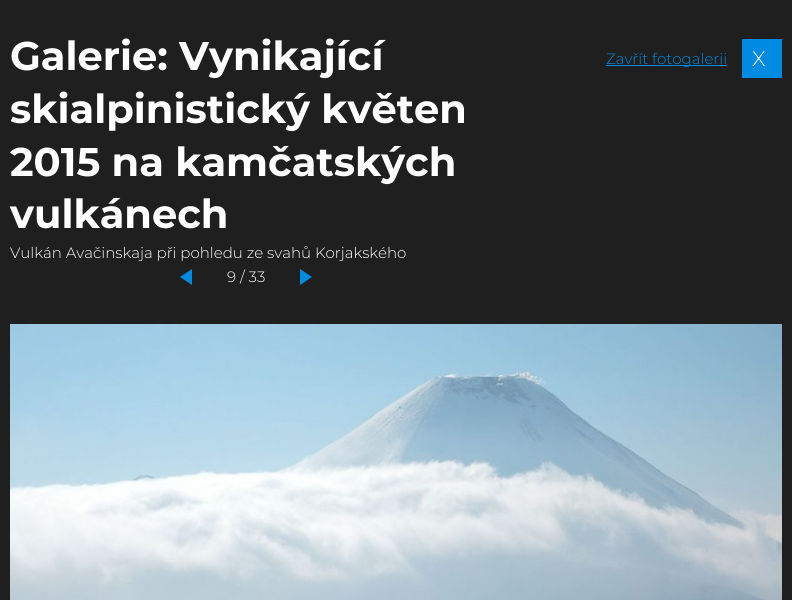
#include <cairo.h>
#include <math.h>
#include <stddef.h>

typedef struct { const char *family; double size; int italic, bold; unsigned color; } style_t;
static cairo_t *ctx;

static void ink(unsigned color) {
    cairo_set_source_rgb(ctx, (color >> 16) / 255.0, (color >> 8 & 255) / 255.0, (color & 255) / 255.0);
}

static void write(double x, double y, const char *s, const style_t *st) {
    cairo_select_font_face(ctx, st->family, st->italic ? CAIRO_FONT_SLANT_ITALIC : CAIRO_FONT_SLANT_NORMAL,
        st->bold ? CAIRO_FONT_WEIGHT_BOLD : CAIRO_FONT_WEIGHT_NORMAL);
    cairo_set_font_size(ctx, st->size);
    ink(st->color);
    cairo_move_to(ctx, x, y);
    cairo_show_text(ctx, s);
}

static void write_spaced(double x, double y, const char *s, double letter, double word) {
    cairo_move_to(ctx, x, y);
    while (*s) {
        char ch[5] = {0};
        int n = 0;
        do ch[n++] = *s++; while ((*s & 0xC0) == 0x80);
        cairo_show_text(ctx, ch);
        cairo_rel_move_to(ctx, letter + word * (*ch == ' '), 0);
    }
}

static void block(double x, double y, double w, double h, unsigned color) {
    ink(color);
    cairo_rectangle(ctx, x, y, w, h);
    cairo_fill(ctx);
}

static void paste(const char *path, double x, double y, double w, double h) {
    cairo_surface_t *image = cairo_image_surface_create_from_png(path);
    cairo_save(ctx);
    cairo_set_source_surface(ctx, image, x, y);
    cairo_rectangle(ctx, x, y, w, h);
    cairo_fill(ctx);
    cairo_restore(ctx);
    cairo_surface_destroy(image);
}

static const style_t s1 = {"Montserrat", 40, 0, 1, 0xffffff};
static const style_t s2 = {"Montserrat Light", 15, 0, 0, 0xffffff};
static const style_t s3 = {"Montserrat Light", 15, 0, 0, 0x008be2};

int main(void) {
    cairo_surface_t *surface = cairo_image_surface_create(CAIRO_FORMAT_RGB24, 792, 600);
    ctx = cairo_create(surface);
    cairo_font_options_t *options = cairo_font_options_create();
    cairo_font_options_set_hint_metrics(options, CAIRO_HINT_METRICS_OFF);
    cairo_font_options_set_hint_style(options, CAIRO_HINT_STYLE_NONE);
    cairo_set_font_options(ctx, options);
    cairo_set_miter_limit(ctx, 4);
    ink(0x1f1f1f);
    cairo_paint(ctx);
    write(10, 70, "Galerie: Vynikající", &s1);
    write(10, 123, "skialpinistický květen", &s1);
    write(10, 176, "2015 na kamčatských", &s1);
    write(10, 228, "vulkánech", &s1);
    write(10, 258, "Vulkán Avačinskaja při pohledu ze svahů Korjakského", &s2);
    ink(0x008be2);
    cairo_new_path(ctx);
    cairo_move_to(ctx, 192, 269);
    cairo_line_to(ctx, 192, 285);
    cairo_line_to(ctx, 180, 277);
    cairo_close_path(ctx);
    cairo_fill(ctx);
    write(227, 282, "9 / 33", &s2);
    ink(0x008be2);
    cairo_new_path(ctx);
    cairo_move_to(ctx, 300, 285);
    cairo_line_to(ctx, 300, 269);
    cairo_line_to(ctx, 312, 277);
    cairo_close_path(ctx);
    cairo_fill(ctx);
    block(606, 65, 121, 1, 0x008be2);
    write(606, 64, "Zavřít fotogalerii", &s3);
    block(742, 39, 40, 39, 0x008be2);
    cairo_set_font_size(ctx, 21);
    ink(0xffffff);
    write_spaced(752, 66, "X", 6, 0);
    paste("pic1.png", 10, 324, 772, 276);
    cairo_surface_write_to_png(surface, "screenshot.png");
    cairo_font_options_destroy(options);
    cairo_destroy(ctx);
    cairo_surface_destroy(surface);
    return 0;
}
